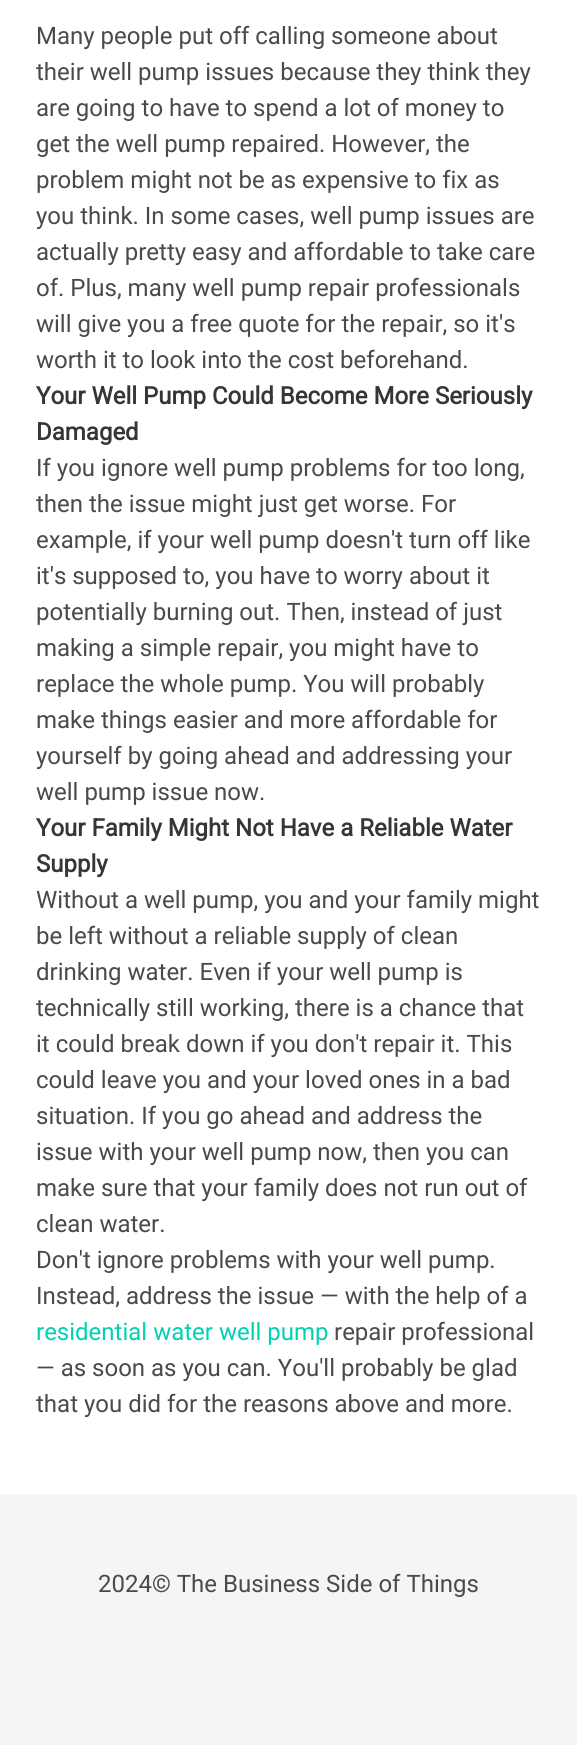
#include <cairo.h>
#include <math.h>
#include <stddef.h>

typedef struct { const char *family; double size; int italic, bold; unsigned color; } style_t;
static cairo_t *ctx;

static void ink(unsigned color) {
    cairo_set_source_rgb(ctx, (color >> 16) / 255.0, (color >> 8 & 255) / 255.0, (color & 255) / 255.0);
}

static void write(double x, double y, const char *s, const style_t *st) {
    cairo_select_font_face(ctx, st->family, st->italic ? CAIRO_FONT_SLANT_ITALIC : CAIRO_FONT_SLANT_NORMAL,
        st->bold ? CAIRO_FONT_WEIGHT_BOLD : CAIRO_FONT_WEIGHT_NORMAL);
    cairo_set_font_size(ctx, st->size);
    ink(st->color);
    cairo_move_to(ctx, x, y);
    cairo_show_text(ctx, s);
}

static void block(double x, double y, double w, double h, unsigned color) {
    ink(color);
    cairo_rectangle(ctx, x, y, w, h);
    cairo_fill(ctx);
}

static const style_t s1 = {"Roboto", 24, 0, 0, 0x4a4a4a};
static const style_t s2 = {"Roboto", 24, 0, 1, 0x363636};
static const style_t s3 = {"Roboto", 24, 0, 0, 0x00d1b2};

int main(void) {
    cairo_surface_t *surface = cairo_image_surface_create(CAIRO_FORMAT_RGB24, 577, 1745);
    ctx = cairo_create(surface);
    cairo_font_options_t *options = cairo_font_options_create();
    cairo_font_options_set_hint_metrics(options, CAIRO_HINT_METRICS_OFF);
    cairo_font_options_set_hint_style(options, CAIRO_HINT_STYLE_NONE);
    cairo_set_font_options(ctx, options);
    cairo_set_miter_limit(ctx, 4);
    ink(0xffffff);
    cairo_paint(ctx);
    write(36, 44, "Many people put off calling someone about", &s1);
    write(36, 80, "their well pump issues because they think they", &s1);
    write(36, 116, "are going to have to spend a lot of money to", &s1);
    write(36, 152, "get the well pump repaired. However, the", &s1);
    write(36, 188, "problem might not be as expensive to fix as", &s1);
    write(36, 224, "you think. In some cases, well pump issues are", &s1);
    write(36, 260, "actually pretty easy and affordable to take care", &s1);
    write(36, 296, "of. Plus, many well pump repair professionals", &s1);
    write(36, 332, "will give you a free quote for the repair, so it's", &s1);
    write(36, 368, "worth it to look into the cost beforehand.", &s1);
    write(36, 404, "Your Well Pump Could Become More Seriously", &s2);
    write(36, 440, "Damaged", &s2);
    write(36, 476, "If you ignore well pump problems for too long,", &s1);
    write(36, 512, "then the issue might just get worse. For", &s1);
    write(36, 548, "example, if your well pump doesn't turn off like", &s1);
    write(36, 584, "it's supposed to, you have to worry about it", &s1);
    write(36, 620, "potentially burning out. Then, instead of just", &s1);
    write(36, 656, "making a simple repair, you might have to", &s1);
    write(36, 692, "replace the whole pump. You will probably", &s1);
    write(36, 728, "make things easier and more affordable for", &s1);
    write(36, 764, "yourself by going ahead and addressing your", &s1);
    write(36, 800, "well pump issue now.", &s1);
    write(36, 836, "Your Family Might Not Have a Reliable Water", &s2);
    write(36, 872, "Supply", &s2);
    write(36, 908, "Without a well pump, you and your family might", &s1);
    write(36, 944, "be left without a reliable supply of clean", &s1);
    write(36, 980, "drinking water. Even if your well pump is", &s1);
    write(36, 1016, "technically still working, there is a chance that", &s1);
    write(36, 1052, "it could break down if you don't repair it. This", &s1);
    write(36, 1088, "could leave you and your loved ones in a bad", &s1);
    write(36, 1124, "situation. If you go ahead and address the", &s1);
    write(36, 1160, "issue with your well pump now, then you can", &s1);
    write(36, 1196, "make sure that your family does not run out of", &s1);
    write(36, 1232, "clean water.", &s1);
    write(36, 1268, "Don't ignore problems with your well pump.", &s1);
    write(36, 1304, "Instead, address the issue — with the help of a", &s1);
    write(36, 1340, "residential water well pump", &s3);
    write(334, 1340, "repair professional", &s1);
    write(36, 1376, "— as soon as you can. You'll probably be glad", &s1);
    write(36, 1412, "that you did for the reasons above and more.", &s1);
    block(0, 1494, 577, 251, 0xf5f5f5);
    write(98, 1592, "2024© The Business Side of Things", &s1);
    cairo_surface_write_to_png(surface, "screenshot.png");
    cairo_font_options_destroy(options);
    cairo_destroy(ctx);
    cairo_surface_destroy(surface);
    return 0;
}
